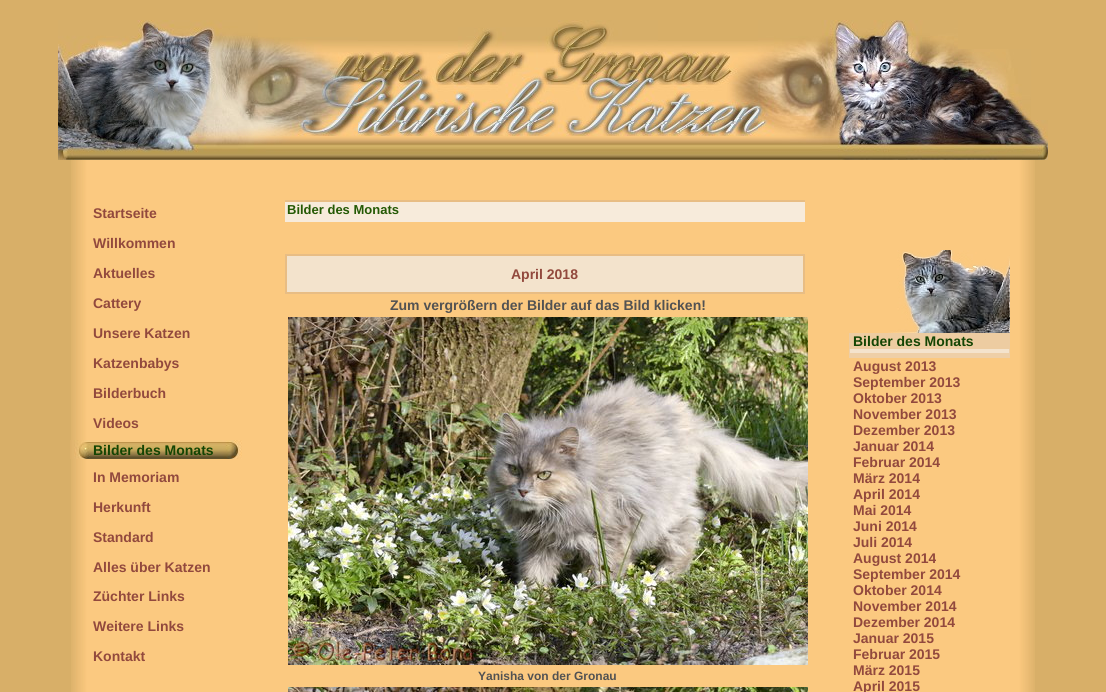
#include <cairo.h>
#include <math.h>
#include <stddef.h>

typedef struct { const char *family; double size; int italic, bold; unsigned color; } style_t;
static cairo_t *ctx;

static void ink(unsigned color) {
    cairo_set_source_rgb(ctx, (color >> 16) / 255.0, (color >> 8 & 255) / 255.0, (color & 255) / 255.0);
}

static void write(double x, double y, const char *s, const style_t *st) {
    cairo_select_font_face(ctx, st->family, st->italic ? CAIRO_FONT_SLANT_ITALIC : CAIRO_FONT_SLANT_NORMAL,
        st->bold ? CAIRO_FONT_WEIGHT_BOLD : CAIRO_FONT_WEIGHT_NORMAL);
    cairo_set_font_size(ctx, st->size);
    ink(st->color);
    cairo_move_to(ctx, x, y);
    cairo_show_text(ctx, s);
}

static void block(double x, double y, double w, double h, unsigned color) {
    ink(color);
    cairo_rectangle(ctx, x, y, w, h);
    cairo_fill(ctx);
}

static void paste(const char *path, double x, double y, double w, double h) {
    cairo_surface_t *image = cairo_image_surface_create_from_png(path);
    cairo_save(ctx);
    cairo_set_source_surface(ctx, image, x, y);
    cairo_rectangle(ctx, x, y, w, h);
    cairo_fill(ctx);
    cairo_restore(ctx);
    cairo_surface_destroy(image);
}

static const style_t s1 = {"Liberation Sans", 14, 0, 1, 0x92493d};
static const style_t s2 = {"Liberation Sans", 14, 0, 1, 0x144503};
static const style_t s3 = {"Liberation Sans", 13, 0, 1, 0x245904};
static const style_t s4 = {"Liberation Sans", 14, 0, 1, 0x525252};
static const style_t s5 = {"Liberation Sans", 12, 0, 1, 0x525252};

int main(void) {
    cairo_surface_t *surface = cairo_image_surface_create(CAIRO_FORMAT_RGB24, 1106, 692);
    ctx = cairo_create(surface);
    cairo_font_options_t *options = cairo_font_options_create();
    cairo_font_options_set_hint_metrics(options, CAIRO_HINT_METRICS_OFF);
    cairo_font_options_set_hint_style(options, CAIRO_HINT_STYLE_NONE);
    cairo_set_font_options(ctx, options);
    cairo_set_miter_limit(ctx, 4);
    ink(0xd8af68);
    cairo_paint(ctx);
    paste("pic1.png", 58, 20, 100, 100);
    paste("pic2.png", 158, 20, 100, 100);
    paste("pic3.png", 258, 37, 100, 83);
    paste("pic4.png", 358, 41, 100, 79);
    paste("pic5.png", 458, 27, 100, 93);
    paste("pic6.png", 558, 20, 100, 100);
    paste("pic7.png", 658, 41, 100, 79);
    paste("pic8.png", 758, 20, 100, 100);
    paste("pic9.png", 858, 20, 100, 100);
    paste("pic10.png", 958, 49, 73, 71);
    paste("pic11.png", 58, 120, 100, 40);
    paste("pic12.png", 158, 120, 100, 40);
    paste("pic13.png", 258, 120, 100, 40);
    paste("pic14.png", 358, 120, 100, 40);
    paste("pic15.png", 458, 120, 100, 40);
    paste("pic16.png", 558, 120, 100, 40);
    paste("pic17.png", 658, 120, 100, 40);
    paste("pic18.png", 758, 120, 100, 40);
    paste("pic19.png", 858, 120, 100, 40);
    paste("pic20.png", 958, 120, 90, 40);
    paste("pic21.png", 71, 160, 964, 40);
    paste("pic22.png", 71, 200, 964, 492);
    write(93, 218, "Startseite", &s1);
    write(93, 248, "Willkommen", &s1);
    write(93, 278, "Aktuelles", &s1);
    write(93, 308, "Cattery", &s1);
    write(93, 338, "Unsere Katzen", &s1);
    write(93, 368, "Katzenbabys", &s1);
    write(93, 398, "Bilderbuch", &s1);
    write(93, 428, "Videos", &s1);
    paste("pic23.png", 70, 440, 172, 19);
    write(93, 455, "Bilder des Monats", &s2);
    write(93, 482, "In Memoriam", &s1);
    write(93, 512, "Herkunft", &s1);
    write(93, 542, "Standard", &s1);
    write(93, 572, "Alles über Katzen", &s1);
    write(93, 601, "Züchter Links", &s1);
    write(93, 631, "Weitere Links", &s1);
    write(93, 661, "Kontakt", &s1);
    block(285, 202, 520, 20, 0xf7ebdb);
    block(285, 200, 520, 2, 0xe8bd84);
    write(287, 214, "Bilder des Monats", &s3);
    ink(0xf3e3cc);
    cairo_rectangle(ctx, 286, 255, 518, 38);
    cairo_fill_preserve(ctx);
    ink(0xe8bd84);
    cairo_stroke(ctx);
    write(511, 279, "April 2018", &s1);
    write(390, 310, "Zum vergrößern der Bilder auf das Bild klicken!", &s4);
    paste("pic24.png", 288, 317, 520, 348);
    write(478, 680, "Yanisha von der Gronau", &s5);
    paste("pic25.png", 288, 687, 520, 5);
    paste("pic26.png", 888, 250, 122, 83);
    block(849, 333, 161, 16, 0xedcca1);
    write(853, 346, "Bilder des Monats", &s2);
    paste("pic27.png", 849, 349, 161, 9);
    write(853, 371, "August 2013", &s1);
    write(853, 387, "September 2013", &s1);
    write(853, 403, "Oktober 2013", &s1);
    write(853, 419, "November 2013", &s1);
    write(853, 435, "Dezember 2013", &s1);
    write(853, 451, "Januar 2014", &s1);
    write(853, 467, "Februar 2014", &s1);
    write(853, 483, "März 2014", &s1);
    write(853, 499, "April 2014", &s1);
    write(853, 515, "Mai 2014", &s1);
    write(853, 531, "Juni 2014", &s1);
    write(853, 547, "Juli 2014", &s1);
    write(853, 563, "August 2014", &s1);
    write(853, 579, "September 2014", &s1);
    write(853, 595, "Oktober 2014", &s1);
    write(853, 611, "November 2014", &s1);
    write(853, 627, "Dezember 2014", &s1);
    write(853, 643, "Januar 2015", &s1);
    write(853, 659, "Februar 2015", &s1);
    write(853, 675, "März 2015", &s1);
    write(853, 691, "April 2015", &s1);
    cairo_surface_write_to_png(surface, "screenshot.png");
    cairo_font_options_destroy(options);
    cairo_destroy(ctx);
    cairo_surface_destroy(surface);
    return 0;
}
